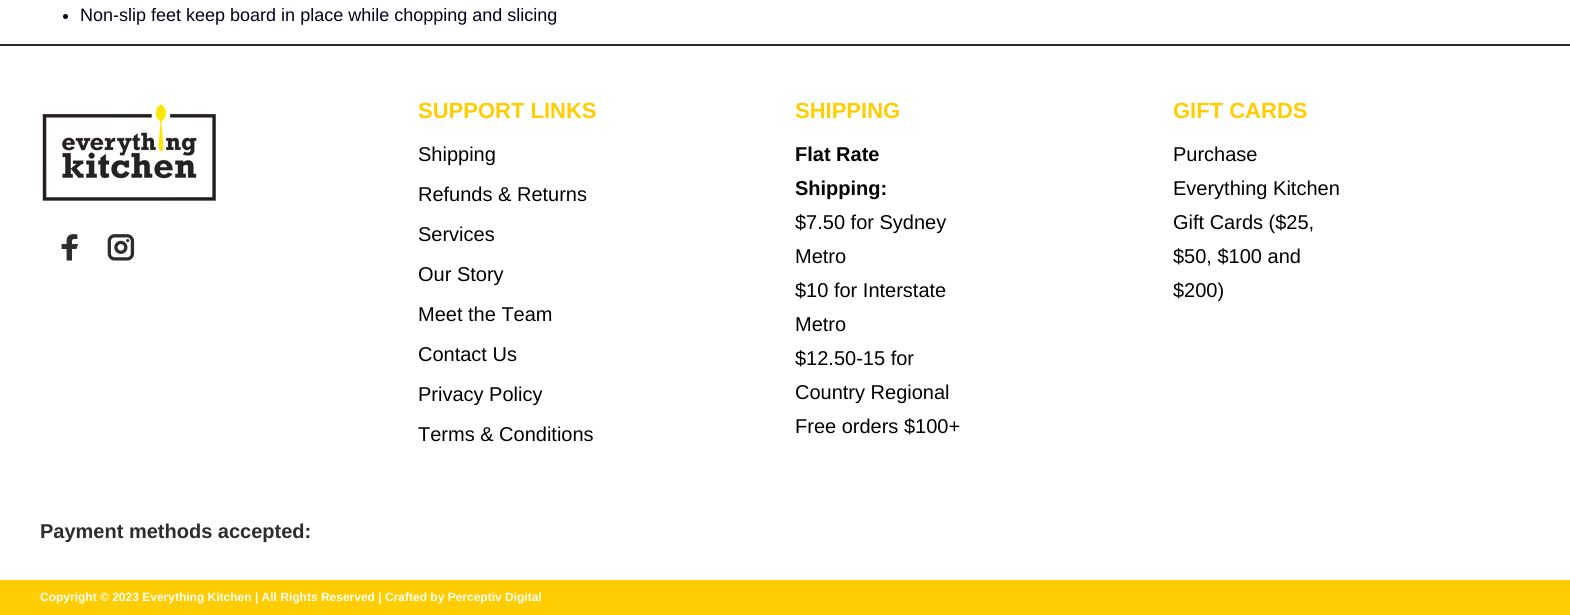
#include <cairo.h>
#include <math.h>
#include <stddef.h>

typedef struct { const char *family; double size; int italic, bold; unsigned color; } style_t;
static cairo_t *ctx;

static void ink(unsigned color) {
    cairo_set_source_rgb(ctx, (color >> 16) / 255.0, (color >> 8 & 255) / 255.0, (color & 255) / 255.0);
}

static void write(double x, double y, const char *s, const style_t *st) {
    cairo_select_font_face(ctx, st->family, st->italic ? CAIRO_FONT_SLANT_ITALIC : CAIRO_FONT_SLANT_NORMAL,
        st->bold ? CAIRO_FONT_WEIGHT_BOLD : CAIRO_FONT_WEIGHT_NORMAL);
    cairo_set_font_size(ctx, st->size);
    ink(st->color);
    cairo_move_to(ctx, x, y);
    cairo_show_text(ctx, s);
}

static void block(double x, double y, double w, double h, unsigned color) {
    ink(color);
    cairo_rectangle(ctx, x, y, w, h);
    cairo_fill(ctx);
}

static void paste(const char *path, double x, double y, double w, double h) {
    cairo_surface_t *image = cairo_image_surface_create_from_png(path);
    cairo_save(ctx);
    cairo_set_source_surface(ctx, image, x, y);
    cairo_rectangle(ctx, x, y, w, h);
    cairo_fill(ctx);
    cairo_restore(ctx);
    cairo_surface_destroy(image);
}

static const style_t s1 = {"Liberation Sans", 18, 0, 0, 0x02021b};
static const style_t s2 = {"Liberation Sans", 22, 0, 1, 0xffcd02};
static const style_t s3 = {"Liberation Sans", 20, 0, 0, 0x000000};
static const style_t s4 = {"Liberation Sans", 20, 0, 1, 0x000000};
static const style_t s5 = {"Liberation Sans", 20, 0, 1, 0x2f2c2c};
static const style_t s6 = {"Liberation Sans", 12, 0, 1, 0xffffff};

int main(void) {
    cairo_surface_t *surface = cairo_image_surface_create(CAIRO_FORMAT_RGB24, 1570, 615);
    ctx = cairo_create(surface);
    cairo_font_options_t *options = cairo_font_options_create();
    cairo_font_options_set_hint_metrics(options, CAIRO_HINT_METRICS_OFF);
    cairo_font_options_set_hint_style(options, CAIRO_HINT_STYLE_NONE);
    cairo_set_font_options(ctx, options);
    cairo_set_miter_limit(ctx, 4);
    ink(0xffffff);
    cairo_paint(ctx);
    ink(0x02021b);
    cairo_arc(ctx, 65.5, 16.5, 2.5, 0, 2 * M_PI);
    cairo_fill(ctx);
    write(80, 21, "Non-slip feet keep board in place while chopping and slicing", &s1);
    block(0, 44, 1570, 2, 0x2f2c2c);
    paste("pic1.png", 42, 104, 174, 97);
    paste("pic2.png", 61, 234, 17, 27);
    paste("pic3.png", 107, 234, 28, 27);
    write(418, 118, "SUPPORT LINKS", &s2);
    write(418, 161, "Shipping", &s3);
    write(418, 201, "Refunds & Returns", &s3);
    write(418, 241, "Services", &s3);
    write(418, 281, "Our Story", &s3);
    write(418, 321, "Meet the Team", &s3);
    write(418, 361, "Contact Us", &s3);
    write(418, 401, "Privacy Policy", &s3);
    write(418, 441, "Terms & Conditions", &s3);
    write(795, 118, "SHIPPING", &s2);
    write(795, 161, "Flat Rate", &s4);
    write(795, 195, "Shipping:", &s4);
    write(795, 229, "$7.50 for Sydney", &s3);
    write(795, 263, "Metro", &s3);
    write(795, 297, "$10 for Interstate", &s3);
    write(795, 331, "Metro", &s3);
    write(795, 365, "$12.50-15 for", &s3);
    write(795, 399, "Country Regional", &s3);
    write(795, 433, "Free orders $100+", &s3);
    write(1173, 118, "GIFT CARDS", &s2);
    write(1173, 161, "Purchase", &s3);
    write(1173, 195, "Everything Kitchen", &s3);
    write(1173, 229, "Gift Cards ($25,", &s3);
    write(1173, 263, "$50, $100 and", &s3);
    write(1173, 297, "$200)", &s3);
    write(40, 538, "Payment methods accepted:", &s5);
    block(0, 580, 1570, 35, 0xffcd02);
    write(40, 601, "Copyright © 2023 Everything Kitchen | All Rights Reserved | Crafted by Perceptiv Digital", &s6);
    cairo_surface_write_to_png(surface, "screenshot.png");
    cairo_font_options_destroy(options);
    cairo_destroy(ctx);
    cairo_surface_destroy(surface);
    return 0;
}
